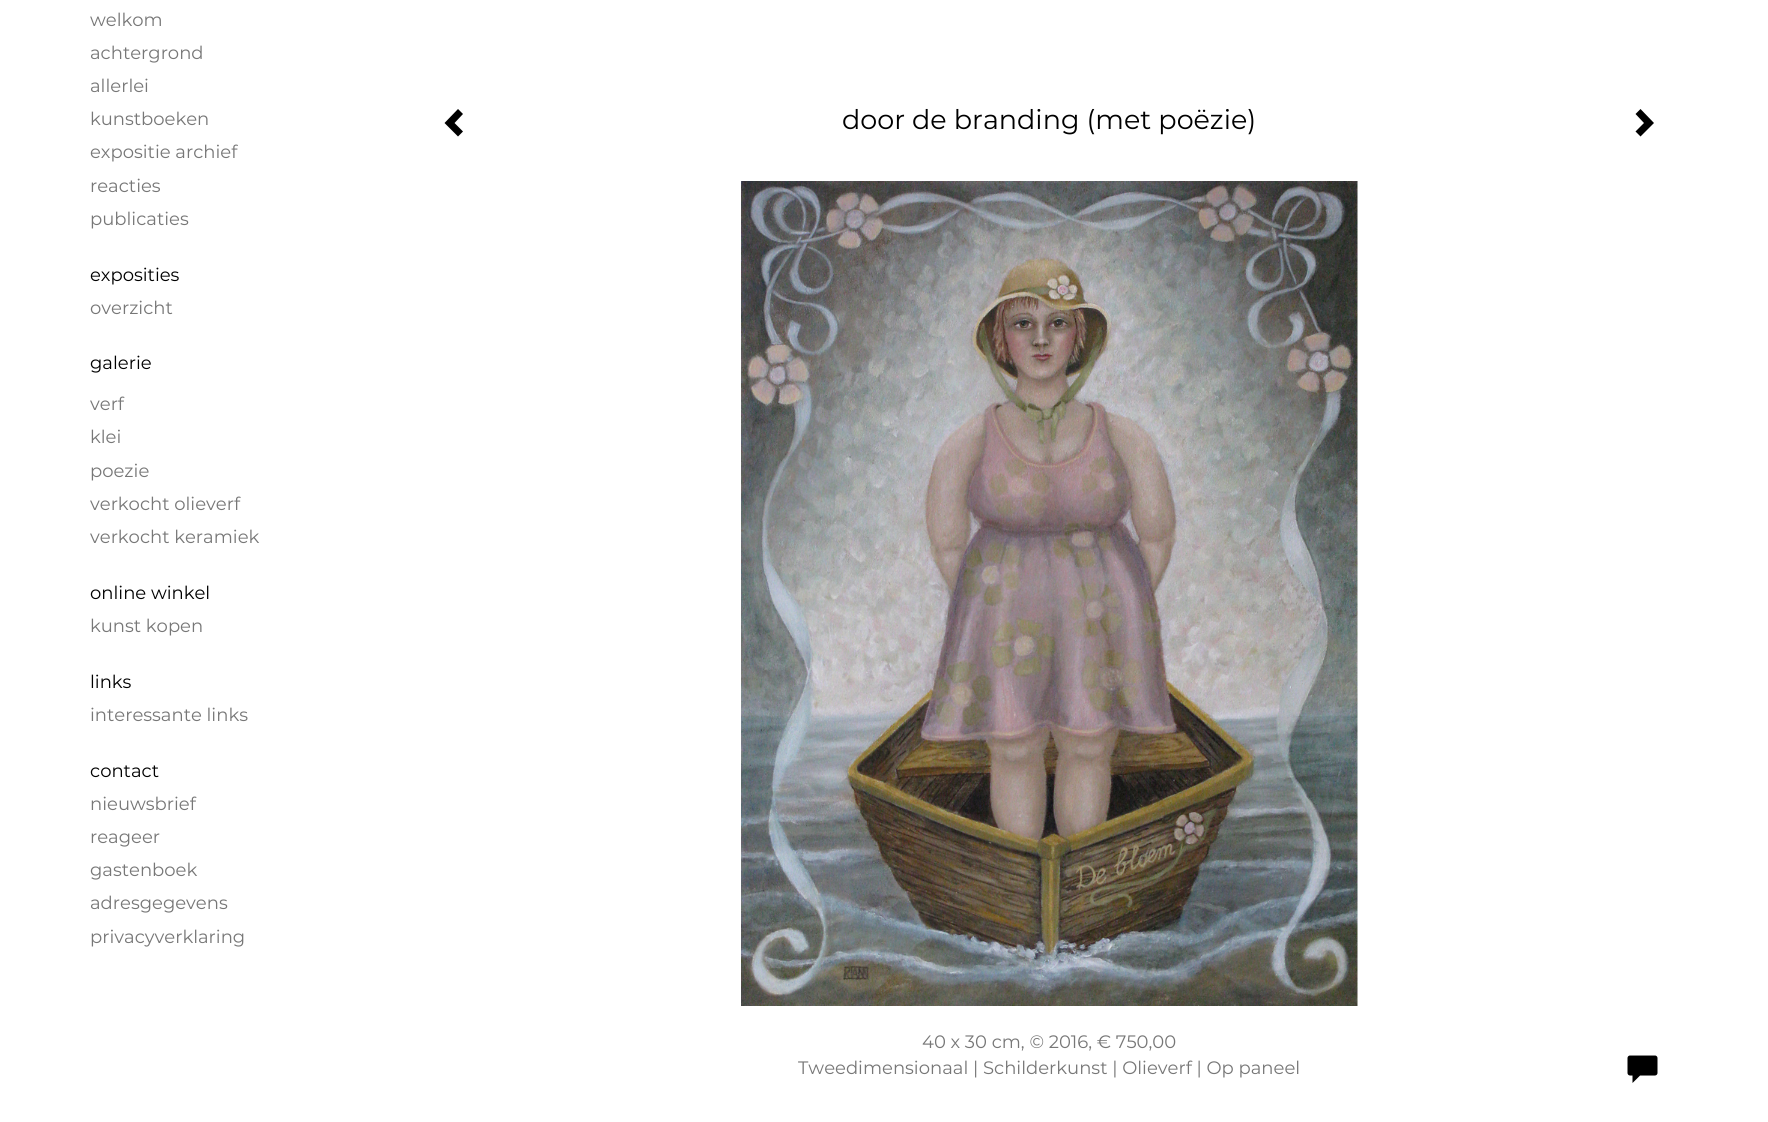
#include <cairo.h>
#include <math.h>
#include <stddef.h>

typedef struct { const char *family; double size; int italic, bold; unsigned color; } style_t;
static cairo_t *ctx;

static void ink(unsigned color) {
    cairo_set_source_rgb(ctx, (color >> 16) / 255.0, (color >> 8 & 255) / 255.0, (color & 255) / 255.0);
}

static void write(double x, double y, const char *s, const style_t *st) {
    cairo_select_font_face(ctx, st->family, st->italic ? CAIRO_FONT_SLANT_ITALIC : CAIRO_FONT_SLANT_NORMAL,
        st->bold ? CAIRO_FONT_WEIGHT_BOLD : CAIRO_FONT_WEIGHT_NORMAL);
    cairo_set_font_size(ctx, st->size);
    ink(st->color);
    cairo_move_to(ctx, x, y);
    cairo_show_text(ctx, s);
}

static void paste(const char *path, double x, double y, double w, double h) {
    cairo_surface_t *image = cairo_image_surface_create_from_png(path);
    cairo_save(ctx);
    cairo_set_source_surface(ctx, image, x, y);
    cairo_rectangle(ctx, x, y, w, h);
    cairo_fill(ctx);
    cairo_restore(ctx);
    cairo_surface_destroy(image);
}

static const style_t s1 = {"Montserrat Thin", 18, 0, 0, 0x777777};
static const style_t s2 = {"Montserrat Thin", 18, 0, 0, 0x000000};
static const style_t s3 = {"Montserrat Thin", 27, 0, 0, 0x000000};

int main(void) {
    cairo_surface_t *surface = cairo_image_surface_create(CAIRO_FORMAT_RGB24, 1768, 1122);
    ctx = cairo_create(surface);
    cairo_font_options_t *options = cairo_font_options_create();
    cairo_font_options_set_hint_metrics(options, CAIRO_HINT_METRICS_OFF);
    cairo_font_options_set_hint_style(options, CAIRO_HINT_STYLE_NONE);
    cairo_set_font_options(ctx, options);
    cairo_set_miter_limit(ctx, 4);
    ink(0xffffff);
    cairo_paint(ctx);
    write(90, 26, "welkom", &s1);
    write(90, 59, "achtergrond", &s1);
    write(90, 92, "allerlei", &s1);
    write(90, 125, "kunstboeken", &s1);
    write(90, 158, "expositie archief", &s1);
    write(90, 192, "reacties", &s1);
    write(90, 225, "publicaties", &s1);
    write(90, 281, "exposities", &s2);
    write(90, 314, "overzicht", &s1);
    write(90, 369, "galerie", &s2);
    write(90, 410, "verf", &s1);
    write(90, 443, "klei", &s1);
    write(90, 477, "poezie", &s1);
    write(90, 510, "verkocht olieverf", &s1);
    write(90, 543, "verkocht keramiek", &s1);
    write(90, 599, "online winkel", &s2);
    write(90, 632, "kunst kopen", &s1);
    write(90, 688, "links", &s2);
    write(90, 721, "interessante links", &s1);
    write(90, 777, "contact", &s2);
    write(90, 810, "nieuwsbrief", &s1);
    write(90, 843, "reageer", &s1);
    write(90, 876, "gastenboek", &s1);
    write(90, 909, "adresgegevens", &s1);
    write(90, 943, "privacyverklaring", &s1);
    ink(0x000000);
    cairo_new_path(ctx);
    cairo_move_to(ctx, 463, 114);
    cairo_line_to(ctx, 454.5, 123);
    cairo_line_to(ctx, 463, 131.5);
    cairo_line_to(ctx, 458, 136.5);
    cairo_line_to(ctx, 444.5, 123);
    cairo_line_to(ctx, 458, 109);
    cairo_close_path(ctx);
    cairo_fill(ctx);
    write(842, 129, "door de branding (met poëzie)", &s3);
    cairo_new_path(ctx);
    cairo_move_to(ctx, 1654, 123);
    cairo_line_to(ctx, 1640.5, 136.5);
    cairo_line_to(ctx, 1635.5, 131.5);
    cairo_line_to(ctx, 1644, 123);
    cairo_line_to(ctx, 1635.5, 114);
    cairo_line_to(ctx, 1640.5, 109);
    cairo_close_path(ctx);
    cairo_fill(ctx);
    paste("pic1.png", 741, 181, 617, 825);
    write(922, 1048, "40 x 30 cm, © 2016, € 750,00", &s1);
    write(798, 1074, "Tweedimensionaal | Schilderkunst | Olieverf | Op paneel", &s1);
    paste("pic2.png", 1627, 1055, 31, 28);
    cairo_surface_write_to_png(surface, "screenshot.png");
    cairo_font_options_destroy(options);
    cairo_destroy(ctx);
    cairo_surface_destroy(surface);
    return 0;
}
